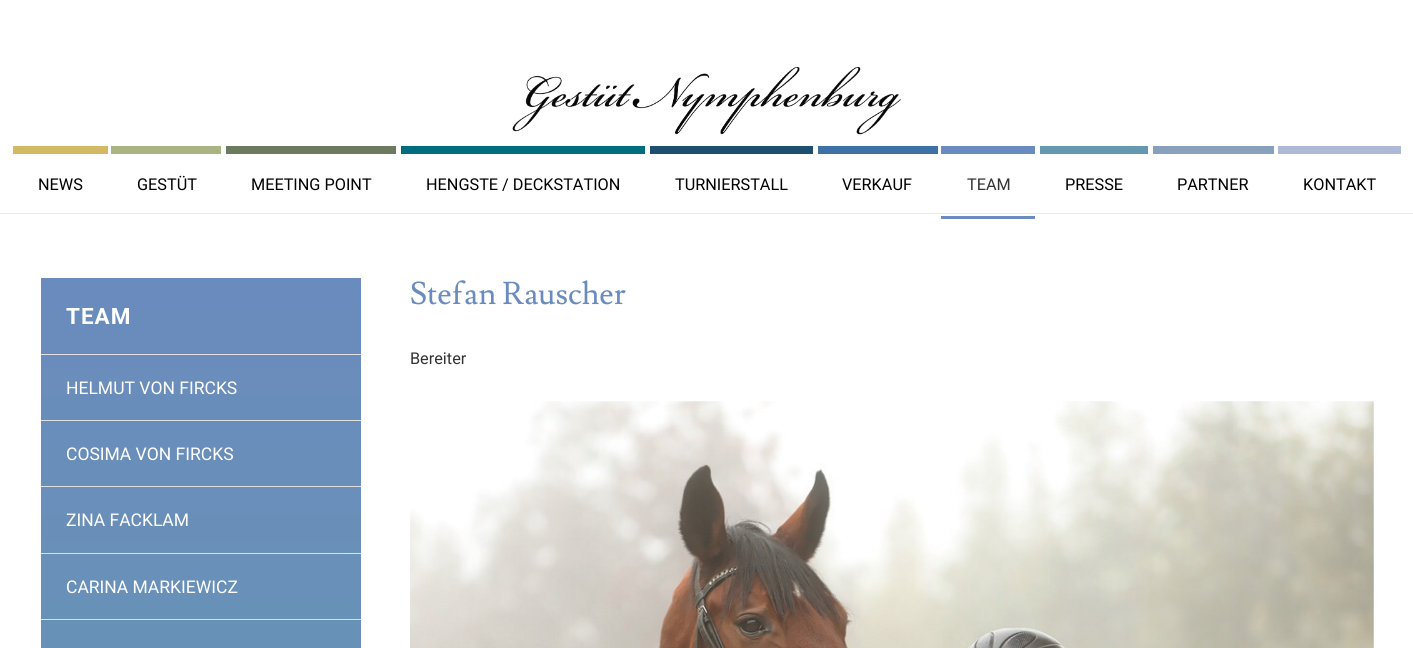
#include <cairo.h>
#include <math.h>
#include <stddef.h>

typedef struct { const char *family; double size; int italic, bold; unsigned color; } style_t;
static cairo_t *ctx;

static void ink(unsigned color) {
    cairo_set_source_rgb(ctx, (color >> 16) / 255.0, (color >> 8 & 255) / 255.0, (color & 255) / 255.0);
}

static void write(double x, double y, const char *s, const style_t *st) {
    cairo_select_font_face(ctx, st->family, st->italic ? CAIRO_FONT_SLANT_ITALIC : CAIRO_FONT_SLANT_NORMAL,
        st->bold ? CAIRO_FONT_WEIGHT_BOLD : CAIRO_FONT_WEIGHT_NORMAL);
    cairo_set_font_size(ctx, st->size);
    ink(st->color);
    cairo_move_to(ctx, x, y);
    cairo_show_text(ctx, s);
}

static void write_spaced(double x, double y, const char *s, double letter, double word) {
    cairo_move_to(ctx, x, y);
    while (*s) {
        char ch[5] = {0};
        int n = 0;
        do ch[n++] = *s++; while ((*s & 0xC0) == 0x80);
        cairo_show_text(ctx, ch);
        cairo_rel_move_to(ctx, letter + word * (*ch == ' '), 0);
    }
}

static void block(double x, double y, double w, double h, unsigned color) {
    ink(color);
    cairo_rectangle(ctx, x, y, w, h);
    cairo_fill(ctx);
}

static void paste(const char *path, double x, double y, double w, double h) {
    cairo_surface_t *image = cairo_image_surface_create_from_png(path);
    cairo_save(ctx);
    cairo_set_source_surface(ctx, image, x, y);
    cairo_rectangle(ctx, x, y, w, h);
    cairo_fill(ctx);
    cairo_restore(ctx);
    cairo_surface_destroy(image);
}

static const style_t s1 = {"Roboto", 16.25, 0, 0, 0x000000};
static const style_t s2 = {"Roboto", 16.25, 0, 0, 0x333333};
static const style_t s3 = {"Roboto", 17.5, 0, 0, 0xffffff};
static const style_t s4 = {"Lusitana", 31.25, 0, 0, 0x6a8bbd};

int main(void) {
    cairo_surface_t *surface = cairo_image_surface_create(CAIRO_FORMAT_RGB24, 1413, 648);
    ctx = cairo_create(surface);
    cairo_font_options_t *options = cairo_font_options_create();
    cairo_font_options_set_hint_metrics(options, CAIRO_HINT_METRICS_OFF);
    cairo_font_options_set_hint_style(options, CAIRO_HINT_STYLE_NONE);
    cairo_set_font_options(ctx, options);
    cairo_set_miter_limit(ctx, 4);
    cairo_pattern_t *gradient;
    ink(0xffffff);
    cairo_paint(ctx);
    paste("pic1.png", 512, 67, 389, 68);
    ink(0xebebeb);
    cairo_new_path(ctx);
    cairo_move_to(ctx, 0, 212);
    cairo_line_to(ctx, 0, 214);
    cairo_line_to(ctx, 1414, 214);
    cairo_line_to(ctx, 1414, 151);
    cairo_line_to(ctx, 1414, 212);
    cairo_close_path(ctx);
    cairo_fill(ctx);
    block(0, 212, 1413, 1, 0xffffff);
    block(13, 146, 95, 8, 0xd3b964);
    write(38, 190, "NEWS", &s1);
    block(111, 146, 110, 8, 0xaab482);
    write(137, 190, "GESTÜT", &s1);
    block(226, 146, 170, 8, 0x6c7a60);
    write(251, 190, "MEETING POINT", &s1);
    block(401, 146, 244, 8, 0x006d7f);
    write(426, 190, "HENGSTE / DECKSTATION", &s1);
    block(650, 146, 163, 8, 0x1e4f70);
    write(675, 190, "TURNIERSTALL", &s1);
    block(818, 146, 120, 8, 0x3e71a6);
    write(842, 190, "VERKAUF", &s1);
    block(941, 146, 94, 8, 0x6a8bbd);
    block(941, 216, 94, 3, 0x6a8bbd);
    write(967, 190, "TEAM", &s2);
    block(1040, 146, 108, 8, 0x6699b1);
    write(1065, 190, "PRESSE", &s1);
    block(1153, 146, 121, 8, 0x88a0be);
    write(1177, 190, "PARTNER", &s1);
    block(1278, 146, 123, 8, 0xafb8d6);
    write(1303, 190, "KONTAKT", &s1);
    gradient = cairo_pattern_create_linear(201, 278, 201, 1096);
    cairo_pattern_add_color_stop_rgba(gradient, 0, 0.416, 0.545, 0.741, 1);
    cairo_pattern_add_color_stop_rgba(gradient, 1, 0.4, 0.6, 0.694, 1);
    cairo_set_source(ctx, gradient);
    cairo_pattern_destroy(gradient);
    cairo_rectangle(ctx, 41, 278, 320, 370);
    cairo_fill(ctx);
    cairo_select_font_face(ctx, "Roboto", CAIRO_FONT_SLANT_NORMAL, CAIRO_FONT_WEIGHT_BOLD);
    cairo_set_font_size(ctx, 22.5);
    ink(0xffffff);
    write_spaced(66, 324, "TEAM", 1, 0);
    block(41, 354, 320, 1, 0xe0e0e0);
    write(66, 394, "HELMUT VON FIRCKS", &s3);
    block(41, 420, 320, 1, 0xe0e0e0);
    write(66, 460, "COSIMA VON FIRCKS", &s3);
    block(41, 486, 320, 1, 0xe0e0e0);
    write(66, 526, "ZINA FACKLAM", &s3);
    block(41, 553, 320, 1, 0xe0e0e0);
    write(66, 593, "CARINA MARKIEWICZ", &s3);
    block(41, 619, 320, 1, 0xe0e0e0);
    write(410, 304, "Stefan Rauscher", &s4);
    write(410, 364, "Bereiter", &s2);
    paste("pic2.png", 410, 401, 964, 247);
    cairo_surface_write_to_png(surface, "screenshot.png");
    cairo_font_options_destroy(options);
    cairo_destroy(ctx);
    cairo_surface_destroy(surface);
    return 0;
}
